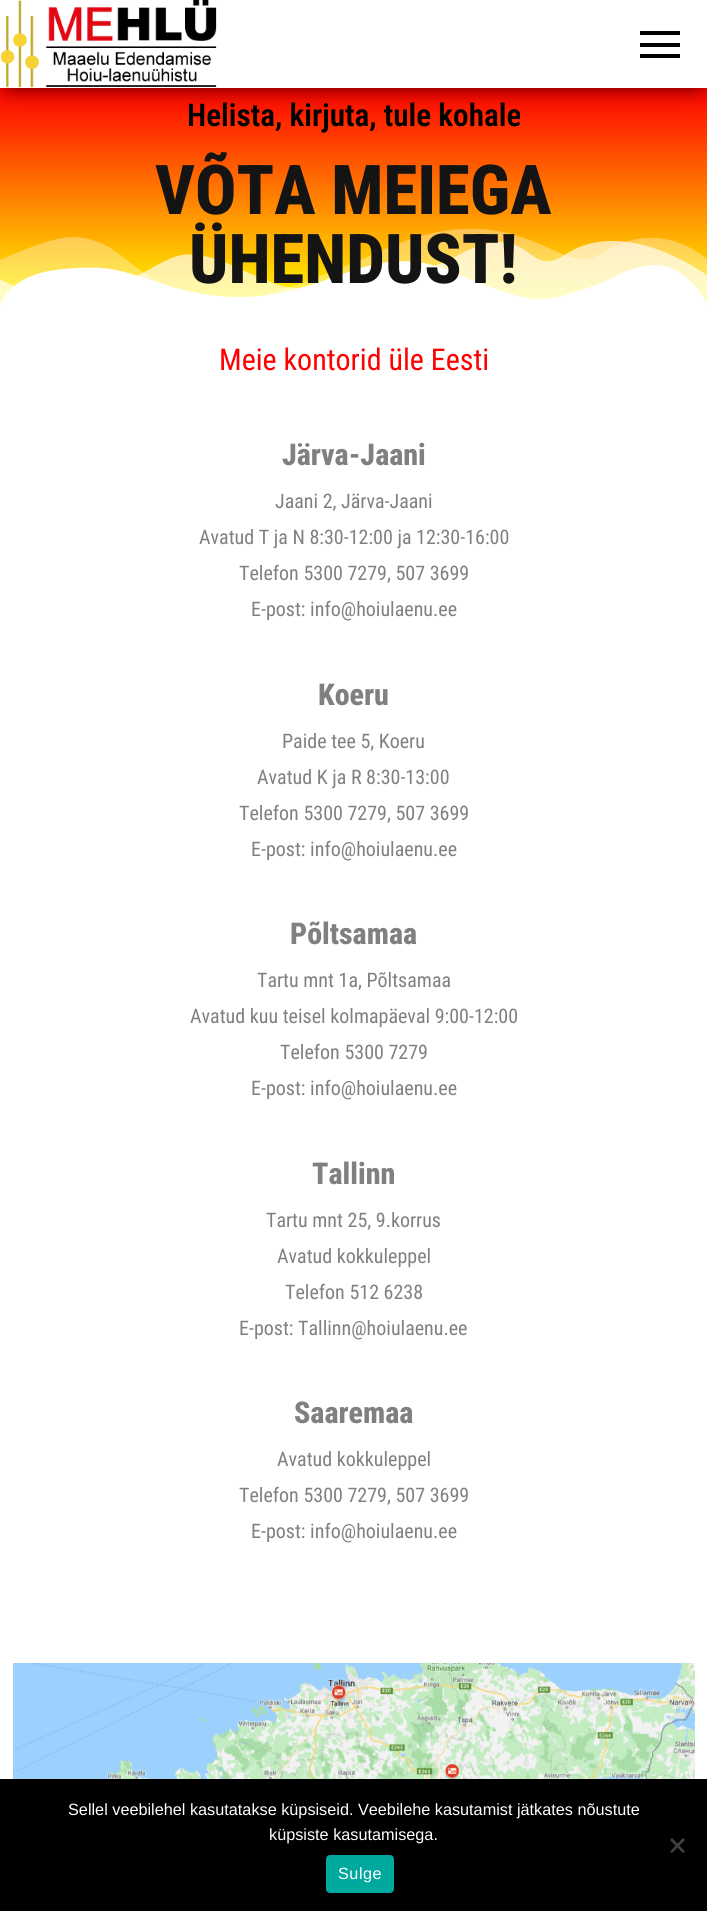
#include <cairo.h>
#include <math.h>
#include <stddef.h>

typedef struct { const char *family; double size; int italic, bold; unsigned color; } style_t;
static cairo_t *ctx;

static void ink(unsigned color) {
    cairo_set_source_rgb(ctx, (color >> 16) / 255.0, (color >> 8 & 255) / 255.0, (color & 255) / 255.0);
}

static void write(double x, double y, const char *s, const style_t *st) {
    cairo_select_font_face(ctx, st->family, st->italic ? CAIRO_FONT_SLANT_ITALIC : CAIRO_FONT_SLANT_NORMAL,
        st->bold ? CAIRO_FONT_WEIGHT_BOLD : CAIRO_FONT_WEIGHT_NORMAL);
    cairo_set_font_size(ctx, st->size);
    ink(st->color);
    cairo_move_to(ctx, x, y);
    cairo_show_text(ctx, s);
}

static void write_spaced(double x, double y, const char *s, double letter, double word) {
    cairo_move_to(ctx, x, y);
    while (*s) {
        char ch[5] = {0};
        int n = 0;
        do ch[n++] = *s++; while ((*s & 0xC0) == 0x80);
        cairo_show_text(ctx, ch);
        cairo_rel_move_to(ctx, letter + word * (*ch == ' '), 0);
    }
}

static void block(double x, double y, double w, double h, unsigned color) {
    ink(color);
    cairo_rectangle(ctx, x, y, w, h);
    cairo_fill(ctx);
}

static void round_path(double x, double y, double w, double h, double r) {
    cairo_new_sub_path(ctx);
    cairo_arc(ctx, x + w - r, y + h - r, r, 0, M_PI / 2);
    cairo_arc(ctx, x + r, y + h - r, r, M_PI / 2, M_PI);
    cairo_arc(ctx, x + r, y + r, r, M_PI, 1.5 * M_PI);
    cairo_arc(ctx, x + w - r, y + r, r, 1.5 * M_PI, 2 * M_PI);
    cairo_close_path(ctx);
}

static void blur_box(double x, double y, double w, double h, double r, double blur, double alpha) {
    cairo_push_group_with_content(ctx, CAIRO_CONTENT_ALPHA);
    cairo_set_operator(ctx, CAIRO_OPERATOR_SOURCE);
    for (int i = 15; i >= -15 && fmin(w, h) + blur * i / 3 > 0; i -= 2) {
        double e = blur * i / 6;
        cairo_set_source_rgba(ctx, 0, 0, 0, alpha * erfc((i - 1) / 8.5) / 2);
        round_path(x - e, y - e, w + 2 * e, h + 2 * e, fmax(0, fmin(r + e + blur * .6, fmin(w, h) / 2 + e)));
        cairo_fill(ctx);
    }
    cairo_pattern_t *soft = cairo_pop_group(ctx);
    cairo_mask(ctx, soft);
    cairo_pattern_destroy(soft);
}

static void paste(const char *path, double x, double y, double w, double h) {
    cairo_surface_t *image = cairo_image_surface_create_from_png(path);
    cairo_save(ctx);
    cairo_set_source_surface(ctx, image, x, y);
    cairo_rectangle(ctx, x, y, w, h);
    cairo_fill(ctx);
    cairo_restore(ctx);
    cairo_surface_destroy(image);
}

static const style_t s1 = {"Roboto Condensed SemiBold", 31.25, 0, 0, 0x000000};
static const style_t s2 = {"Roboto Condensed ExtraBold", 68.75, 0, 0, 0x141414};
static const style_t s3 = {"Roboto Condensed", 30, 0, 0, 0xff0000};
static const style_t s4 = {"Roboto Condensed ExtraBold", 30, 0, 0, 0x808080};
static const style_t s5 = {"Roboto Condensed", 20, 0, 0, 0x808080};
static const style_t s6 = {"Liberation Sans", 16.25, 0, 0, 0xffffff};

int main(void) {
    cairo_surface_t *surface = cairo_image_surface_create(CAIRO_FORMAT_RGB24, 707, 1911);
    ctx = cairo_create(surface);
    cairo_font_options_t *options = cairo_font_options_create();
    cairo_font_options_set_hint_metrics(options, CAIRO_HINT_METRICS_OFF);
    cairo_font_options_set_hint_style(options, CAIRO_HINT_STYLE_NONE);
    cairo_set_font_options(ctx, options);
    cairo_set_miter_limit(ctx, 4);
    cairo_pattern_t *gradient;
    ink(0xffffff);
    cairo_paint(ctx);
    gradient = cairo_pattern_create_linear(354, 87, 354, 306);
    cairo_pattern_add_color_stop_rgba(gradient, 0, 1, 0, 0, 1);
    cairo_pattern_add_color_stop_rgba(gradient, 1, 1, 1, 0, 1);
    cairo_set_source(ctx, gradient);
    cairo_pattern_destroy(gradient);
    cairo_rectangle(ctx, 0, 88, 707, 217);
    cairo_fill(ctx);
    ink(0x000000);
    blur_box(6, 16, 695, 75, 0, 6, 0.2);
    blur_box(0, 4, 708, 87, 0, 12.5, 0.12);
    blur_box(15, 28, 678, 57, 0, 12.5, 0.42);
    block(0, 0, 707, 88, 0xffffff);
    paste("pic1.png", 0, 0, 217, 88);
    block(640, 31, 40, 4, 0x000000);
    block(640, 43, 40, 4, 0x000000);
    block(640, 54, 40, 4, 0x000000);
    write(187, 126, "Helista, kirjuta, tule kohale", &s1);
    write(155, 214, "VÕTA MEIEGA", &s2);
    paste("pic2.png", 0, 229, 707, 77);
    write(189, 283, "ÜHENDUST!", &s2);
    write(219, 370, "Meie kontorid üle Eesti", &s3);
    write(282, 465, "Järva-Jaani", &s4);
    write(275, 508, "Jaani 2, Järva-Jaani", &s5);
    write(199, 544, "Avatud T ja N 8:30-12:00 ja 12:30-16:00", &s5);
    write(239, 580, "Telefon 5300 7279, 507 3699", &s5);
    write(251, 616, "E-post: info@hoiulaenu.ee", &s5);
    write(318, 705, "Koeru", &s4);
    write(282, 748, "Paide tee 5, Koeru", &s5);
    write(257, 784, "Avatud K ja R 8:30-13:00", &s5);
    write(239, 820, "Telefon 5300 7279, 507 3699", &s5);
    write(251, 856, "E-post: info@hoiulaenu.ee", &s5);
    write(290, 944, "Põltsamaa", &s4);
    write(257, 987, "Tartu mnt 1a, Põltsamaa", &s5);
    write(190, 1023, "Avatud kuu teisel kolmapäeval 9:00-12:00", &s5);
    write(280, 1059, "Telefon 5300 7279", &s5);
    write(251, 1095, "E-post: info@hoiulaenu.ee", &s5);
    write(312, 1184, "Tallinn", &s4);
    write(266, 1227, "Tartu mnt 25, 9.korrus", &s5);
    write(277, 1263, "Avatud kokkuleppel", &s5);
    write(285, 1299, "Telefon 512 6238", &s5);
    write(239, 1335, "E-post: Tallinn@hoiulaenu.ee", &s5);
    write(294, 1423, "Saaremaa", &s4);
    write(277, 1466, "Avatud kokkuleppel", &s5);
    write(239, 1502, "Telefon 5300 7279, 507 3699", &s5);
    write(251, 1538, "E-post: info@hoiulaenu.ee", &s5);
    paste("pic3.png", 13, 1663, 682, 116);
    block(0, 1779, 707, 132, 0x000000);
    write(68, 1815, "Sellel veebilehel kasutatakse küpsiseid. Veebilehe kasutamist jätkates nõustute", &s6);
    write(269, 1840, "küpsiste kasutamisega.", &s6);
    ink(0x404040);
    cairo_new_path(ctx);
    cairo_move_to(ctx, 683, 1838);
    cairo_line_to(ctx, 685, 1840);
    cairo_line_to(ctx, 672, 1853);
    cairo_line_to(ctx, 670, 1851.5);
    cairo_close_path(ctx);
    cairo_fill(ctx);
    cairo_new_path(ctx);
    cairo_move_to(ctx, 670, 1840);
    cairo_line_to(ctx, 672, 1838);
    cairo_line_to(ctx, 685, 1851.5);
    cairo_line_to(ctx, 683, 1853);
    cairo_close_path(ctx);
    cairo_fill(ctx);
    ink(0x00a99d);
    round_path(326, 1855, 68, 38, 4);
    cairo_fill(ctx);
    ink(0xffffff);
    write_spaced(338, 1879, "Sulge", 0.5, 0);
    cairo_surface_write_to_png(surface, "screenshot.png");
    cairo_font_options_destroy(options);
    cairo_destroy(ctx);
    cairo_surface_destroy(surface);
    return 0;
}
